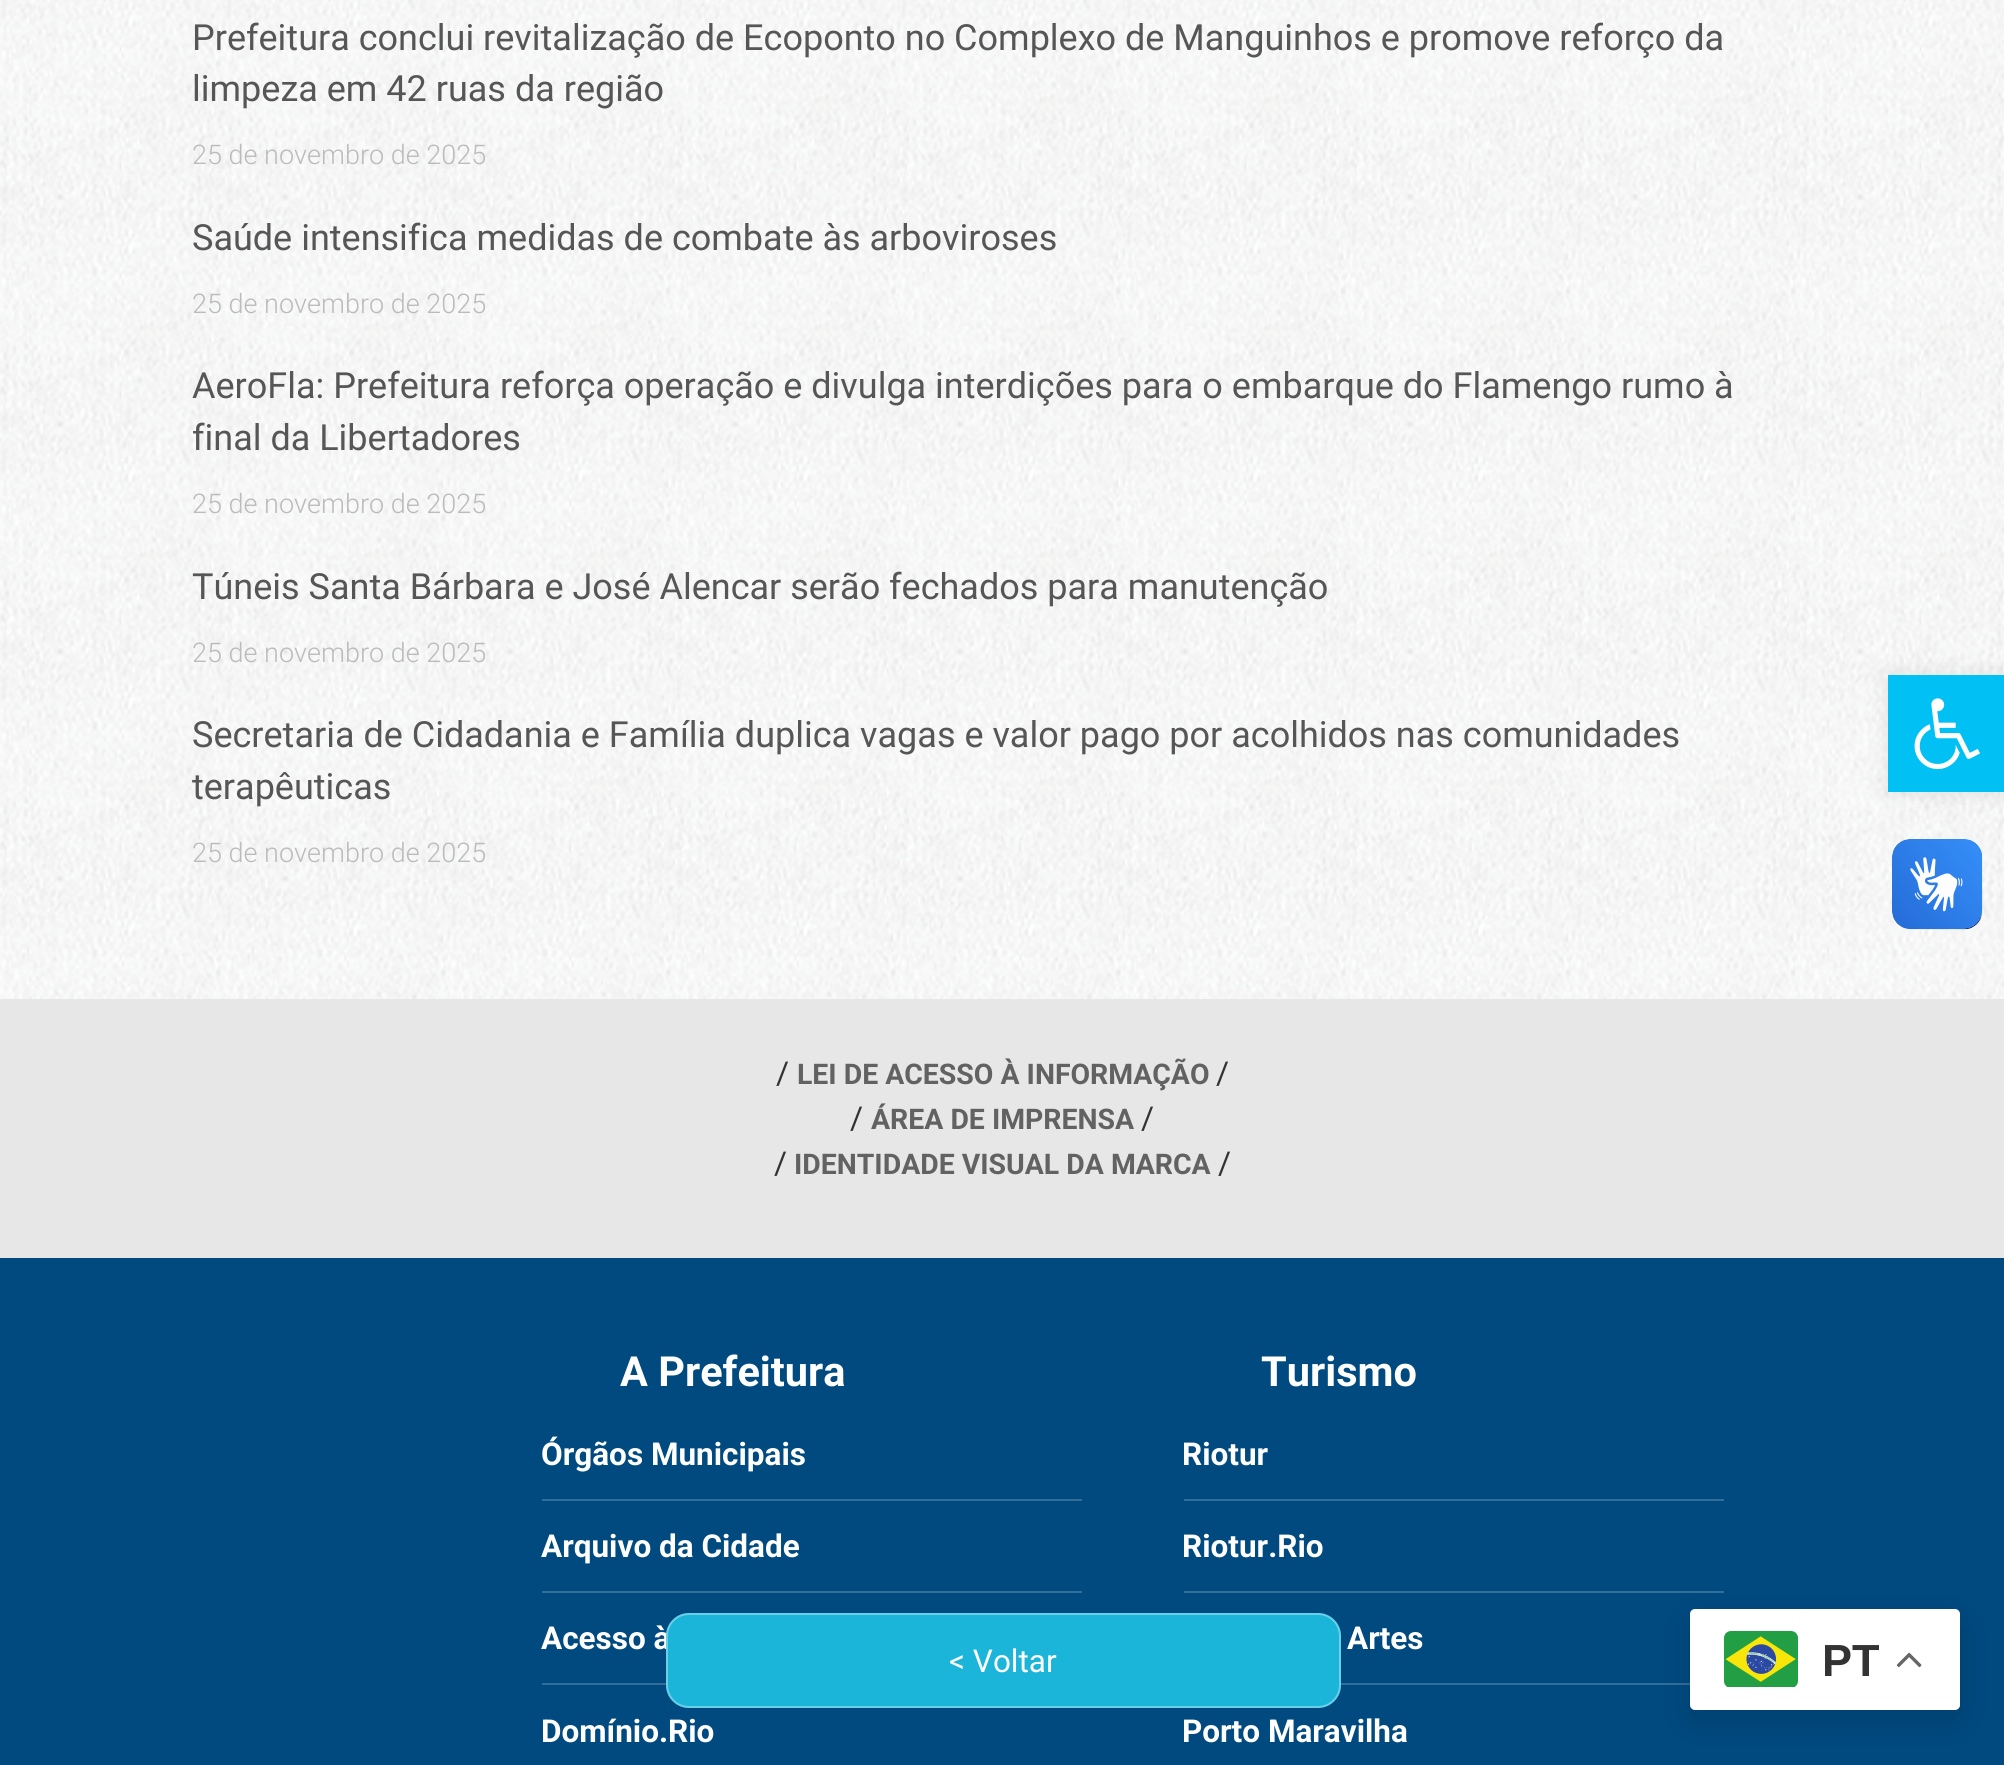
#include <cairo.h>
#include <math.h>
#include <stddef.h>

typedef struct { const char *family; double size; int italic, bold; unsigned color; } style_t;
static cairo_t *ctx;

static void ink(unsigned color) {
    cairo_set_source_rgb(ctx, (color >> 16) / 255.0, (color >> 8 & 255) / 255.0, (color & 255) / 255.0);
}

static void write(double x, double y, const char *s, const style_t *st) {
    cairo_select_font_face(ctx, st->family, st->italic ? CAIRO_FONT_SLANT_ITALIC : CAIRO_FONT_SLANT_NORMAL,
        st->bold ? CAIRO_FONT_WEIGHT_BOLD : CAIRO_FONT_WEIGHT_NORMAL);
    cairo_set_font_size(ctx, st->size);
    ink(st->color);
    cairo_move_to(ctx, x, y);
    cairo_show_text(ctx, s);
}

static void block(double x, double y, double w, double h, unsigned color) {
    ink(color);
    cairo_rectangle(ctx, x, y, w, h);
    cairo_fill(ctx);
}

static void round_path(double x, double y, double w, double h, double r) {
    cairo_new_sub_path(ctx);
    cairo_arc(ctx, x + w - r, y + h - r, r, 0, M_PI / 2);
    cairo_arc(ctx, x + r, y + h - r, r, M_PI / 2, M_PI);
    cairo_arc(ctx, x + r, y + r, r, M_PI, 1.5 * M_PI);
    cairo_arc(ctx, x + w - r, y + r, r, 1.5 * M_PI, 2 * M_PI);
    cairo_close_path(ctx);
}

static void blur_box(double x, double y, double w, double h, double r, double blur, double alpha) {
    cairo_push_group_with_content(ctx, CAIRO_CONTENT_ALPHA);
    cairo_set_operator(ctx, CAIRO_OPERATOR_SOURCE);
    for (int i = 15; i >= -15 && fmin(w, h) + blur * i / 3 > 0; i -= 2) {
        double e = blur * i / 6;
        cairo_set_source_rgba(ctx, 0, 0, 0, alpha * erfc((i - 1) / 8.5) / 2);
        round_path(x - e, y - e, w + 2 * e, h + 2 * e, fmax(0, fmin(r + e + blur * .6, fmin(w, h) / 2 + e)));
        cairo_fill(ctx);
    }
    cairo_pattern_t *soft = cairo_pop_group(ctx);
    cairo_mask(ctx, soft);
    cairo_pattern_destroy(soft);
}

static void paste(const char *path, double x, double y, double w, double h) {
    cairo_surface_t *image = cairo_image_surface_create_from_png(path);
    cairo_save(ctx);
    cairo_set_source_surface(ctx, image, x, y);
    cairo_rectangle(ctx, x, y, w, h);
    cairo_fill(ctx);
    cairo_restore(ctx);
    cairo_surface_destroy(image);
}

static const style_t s1 = {"Roboto", 36, 0, 0, 0x565656};
static const style_t s2 = {"Roboto Light", 27, 0, 0, 0xbbbbbb};
static const style_t s3 = {"Roboto", 31.5, 0, 1, 0xffffff};
static const style_t s4 = {"Roboto", 31.5, 0, 0, 0xffffff};
static const style_t s5 = {"Roboto", 31.5, 0, 0, 0x333333};
static const style_t s6 = {"Roboto", 28.4, 0, 1, 0x626262};
static const style_t s7 = {"Roboto", 41.5, 0, 1, 0xffffff};
static const style_t s8 = {"Liberation Sans", 45, 0, 1, 0x333333};

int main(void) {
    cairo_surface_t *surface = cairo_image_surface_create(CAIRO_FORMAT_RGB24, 2004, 1765);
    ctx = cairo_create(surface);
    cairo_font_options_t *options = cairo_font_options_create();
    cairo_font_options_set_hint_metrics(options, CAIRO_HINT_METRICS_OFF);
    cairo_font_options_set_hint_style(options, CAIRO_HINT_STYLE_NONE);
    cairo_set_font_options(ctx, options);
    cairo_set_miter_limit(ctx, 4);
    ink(0xffffff);
    cairo_paint(ctx);
    paste("pic1.png", 0, 0, 2004, 999);
    write(192, 50, "Prefeitura conclui revitalização de Ecoponto no Complexo de Manguinhos e promove reforço da", &s1);
    write(192, 101, "limpeza em 42 ruas da região", &s1);
    write(192, 164, "25 de novembro de 2025", &s2);
    write(192, 250, "Saúde intensifica medidas de combate às arboviroses", &s1);
    write(192, 313, "25 de novembro de 2025", &s2);
    write(192, 398, "AeroFla: Prefeitura reforça operação e divulga interdições para o embarque do Flamengo rumo à", &s1);
    write(192, 450, "final da Libertadores", &s1);
    write(192, 513, "25 de novembro de 2025", &s2);
    write(192, 599, "Túneis Santa Bárbara e José Alencar serão fechados para manutenção", &s1);
    write(192, 662, "25 de novembro de 2025", &s2);
    write(192, 747, "Secretaria de Cidadania e Família duplica vagas e valor pago por acolhidos nas comunidades", &s1);
    write(192, 799, "terapêuticas", &s1);
    write(192, 862, "25 de novembro de 2025", &s2);
    block(0, 1258, 2004, 507, 0x004a80);
    write(541, 1649, "Acesso à", &s3);
    ink(0x1bb5da);
    round_path(666, 1613, 675, 95, 23);
    cairo_fill(ctx);
    round_path(667, 1614, 673, 93, 22);
    cairo_set_source_rgba(ctx, 1, 1, 1, 0.35);
    cairo_stroke(ctx);
    write(949, 1672, "< Voltar", &s4);
    ink(0x000000);
    blur_box(1888, 675, 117, 117, 0, 11, 0.1);
    block(1888, 675, 116, 117, 0x00c0f4);
    paste("pic2.png", 1914, 698, 66, 72);
    paste("pic3.png", 1892, 839, 91, 91);
    paste("pic4.png", 1892, 839, 90, 90);
    block(0, 999, 2004, 259, 0xe7e7e7);
    write(776, 1084, "/", &s5);
    write(797, 1084, "LEI DE ACESSO À INFORMAÇÃO", &s6);
    write(1216, 1084, "/", &s5);
    write(850, 1129, "/", &s5);
    write(871, 1129, "ÁREA DE IMPRENSA", &s6);
    write(1141, 1129, "/", &s5);
    write(774, 1174, "/", &s5);
    write(794, 1174, "IDENTIDADE VISUAL DA MARCA", &s6);
    write(1218, 1174, "/", &s5);
    write(620, 1386, "A Prefeitura", &s7);
    block(542, 1499, 540, 2, 0x336e99);
    write(541, 1465, "Órgãos Municipais", &s3);
    block(542, 1591, 540, 2, 0x336e99);
    write(541, 1557, "Arquivo da Cidade", &s3);
    block(542, 1683, 124, 2, 0x336e99);
    write(541, 1742, "Domínio.Rio", &s3);
    write(1261, 1386, "Turismo", &s7);
    block(1184, 1499, 540, 2, 0x336e99);
    write(1182, 1465, "Riotur", &s3);
    block(1184, 1591, 540, 2, 0x336e99);
    write(1182, 1557, "Riotur.Rio", &s3);
    block(1341, 1683, 349, 2, 0x336e99);
    write(1347, 1649, "Artes", &s3);
    write(1182, 1742, "Porto Maravilha", &s3);
    ink(0x000000);
    blur_box(1690, 1620, 270, 101, 5, 17, 0.15);
    ink(0xffffff);
    round_path(1690, 1609, 270, 101, 5);
    cairo_fill(ctx);
    paste("pic5.png", 1724, 1631, 74, 56);
    write(1822, 1676, "PT", &s8);
    paste("pic6.png", 1897, 1652, 25, 16);
    cairo_surface_write_to_png(surface, "screenshot.png");
    cairo_font_options_destroy(options);
    cairo_destroy(ctx);
    cairo_surface_destroy(surface);
    return 0;
}
